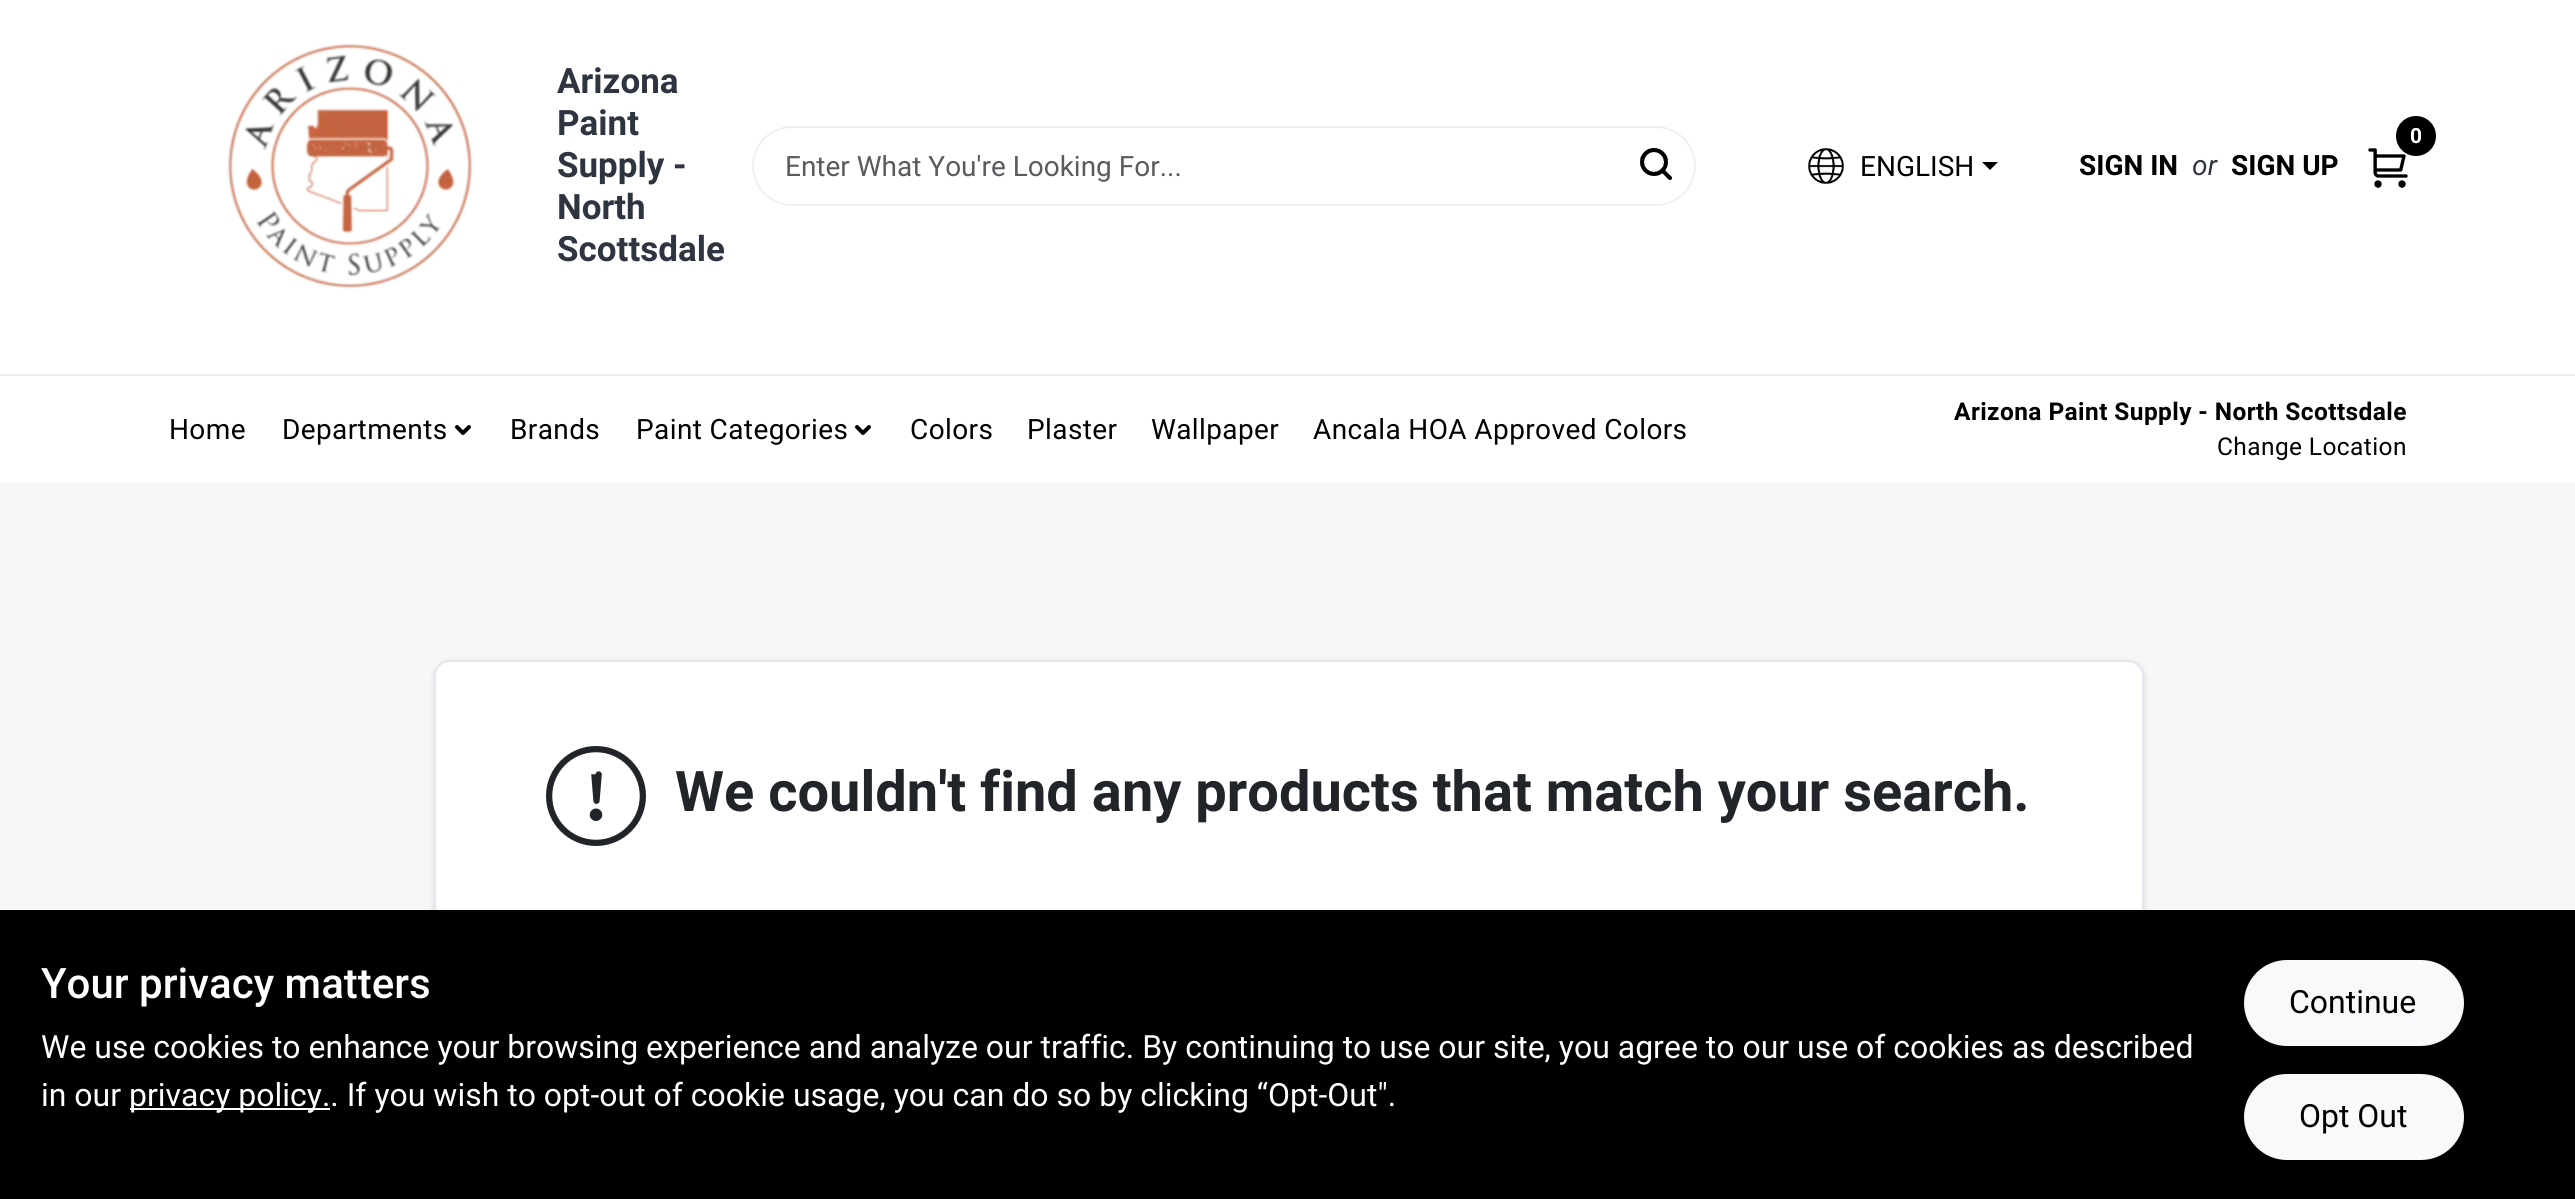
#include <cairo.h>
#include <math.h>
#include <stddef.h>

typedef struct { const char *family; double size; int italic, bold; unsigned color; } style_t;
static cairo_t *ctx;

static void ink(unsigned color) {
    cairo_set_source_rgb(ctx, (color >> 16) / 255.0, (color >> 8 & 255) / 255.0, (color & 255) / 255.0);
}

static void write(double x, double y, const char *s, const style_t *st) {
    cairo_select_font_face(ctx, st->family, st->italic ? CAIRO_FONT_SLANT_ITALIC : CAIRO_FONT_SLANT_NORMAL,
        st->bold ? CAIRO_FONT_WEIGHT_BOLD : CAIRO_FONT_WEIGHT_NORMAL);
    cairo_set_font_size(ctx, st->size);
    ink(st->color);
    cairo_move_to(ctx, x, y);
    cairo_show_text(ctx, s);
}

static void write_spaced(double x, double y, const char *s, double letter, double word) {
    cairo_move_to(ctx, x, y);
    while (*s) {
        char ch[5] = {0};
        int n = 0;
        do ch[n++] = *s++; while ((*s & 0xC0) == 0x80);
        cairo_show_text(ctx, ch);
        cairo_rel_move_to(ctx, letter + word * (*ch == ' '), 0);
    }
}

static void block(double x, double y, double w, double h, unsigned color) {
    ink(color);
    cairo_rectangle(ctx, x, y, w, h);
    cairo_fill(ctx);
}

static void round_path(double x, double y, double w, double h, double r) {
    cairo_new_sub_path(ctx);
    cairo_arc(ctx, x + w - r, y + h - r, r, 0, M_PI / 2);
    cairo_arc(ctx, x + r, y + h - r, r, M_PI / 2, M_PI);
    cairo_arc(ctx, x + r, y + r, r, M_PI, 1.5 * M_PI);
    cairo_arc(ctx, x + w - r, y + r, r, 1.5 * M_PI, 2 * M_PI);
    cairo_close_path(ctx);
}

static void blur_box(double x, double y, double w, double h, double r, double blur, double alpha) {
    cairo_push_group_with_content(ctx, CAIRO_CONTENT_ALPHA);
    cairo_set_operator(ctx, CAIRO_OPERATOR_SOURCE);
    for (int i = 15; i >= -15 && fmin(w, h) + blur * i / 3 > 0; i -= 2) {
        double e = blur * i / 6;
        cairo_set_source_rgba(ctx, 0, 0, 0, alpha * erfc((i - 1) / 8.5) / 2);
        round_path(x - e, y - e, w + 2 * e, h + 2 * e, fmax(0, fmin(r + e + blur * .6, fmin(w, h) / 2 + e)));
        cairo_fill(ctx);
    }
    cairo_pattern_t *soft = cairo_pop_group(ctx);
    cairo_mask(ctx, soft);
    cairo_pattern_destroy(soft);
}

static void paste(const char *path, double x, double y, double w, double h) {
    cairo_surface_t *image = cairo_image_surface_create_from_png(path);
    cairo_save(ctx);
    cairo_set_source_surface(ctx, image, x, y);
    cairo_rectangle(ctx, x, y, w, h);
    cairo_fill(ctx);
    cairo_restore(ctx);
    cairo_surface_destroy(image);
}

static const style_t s1 = {"Roboto", 35, 0, 1, 0x2f3540};
static const style_t s2 = {"Roboto", 28, 0, 0, 0x595c5f};
static const style_t s3 = {"Roboto", 28, 0, 0, 0x000000};
static const style_t s4 = {"Roboto", 28, 0, 1, 0x000000};
static const style_t s5 = {"Roboto", 28, 1, 0, 0x2f3540};
static const style_t s6 = {"Roboto", 56, 0, 1, 0x212529};
static const style_t s7 = {"Roboto Medium", 42, 0, 0, 0xffffff};
static const style_t s8 = {"Roboto", 32, 0, 0, 0xffffff};
static const style_t s9 = {"Roboto", 32, 0, 0, 0x000000};

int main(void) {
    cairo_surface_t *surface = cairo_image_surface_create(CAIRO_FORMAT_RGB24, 2575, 1199);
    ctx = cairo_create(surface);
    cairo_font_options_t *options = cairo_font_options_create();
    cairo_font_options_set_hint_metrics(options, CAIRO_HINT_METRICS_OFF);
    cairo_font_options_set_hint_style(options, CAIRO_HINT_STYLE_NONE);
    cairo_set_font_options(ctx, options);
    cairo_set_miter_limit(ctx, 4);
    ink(0xf7f7f7);
    cairo_paint(ctx);
    block(0, 0, 2575, 374, 0xffffff);
    paste("pic1.png", 227, 43, 246, 246);
    write(557, 93, "Arizona", &s1);
    write(557, 135, "Paint", &s1);
    write(557, 177, "Supply -", &s1);
    write(557, 219, "North", &s1);
    write(557, 261, "Scottsdale", &s1);
    round_path(753, 127, 942, 78, 39);
    ink(0xf0f0f0);
    cairo_stroke(ctx);
    write(785, 176, "Enter What You're Looking For...", &s2);
    paste("pic2.png", 1640, 148, 32, 32);
    paste("pic3.png", 2368, 148, 40, 40);
    ink(0x000000);
    cairo_arc(ctx, 2416, 136, 20, 0, 2 * M_PI);
    cairo_fill(ctx);
    cairo_select_font_face(ctx, "Roboto", CAIRO_FONT_SLANT_NORMAL, CAIRO_FONT_WEIGHT_BOLD);
    cairo_set_font_size(ctx, 21);
    ink(0xffffff);
    write_spaced(2410, 143, "0", -2, 0);
    paste("pic4.png", 1808, 148, 36, 36);
    write(1860, 176, "ENGLISH", &s3);
    cairo_new_path(ctx);
    cairo_move_to(ctx, 1982, 162);
    cairo_line_to(ctx, 1998, 162);
    cairo_line_to(ctx, 1990, 170);
    cairo_close_path(ctx);
    cairo_fill(ctx);
    write(2079, 175, "SIGN IN", &s4);
    write(2192, 175, "or", &s5);
    write(2231, 175, "SIGN UP", &s4);
    block(0, 376, 2575, 106, 0xffffff);
    block(0, 374, 2575, 2, 0xededed);
    cairo_select_font_face(ctx, "Roboto", CAIRO_FONT_SLANT_NORMAL, CAIRO_FONT_WEIGHT_NORMAL);
    ink(0x000000);
    write_spaced(169, 439, "Home", 0.4, 0);
    write_spaced(282, 439, "Departments", 0.4, 0);
    cairo_new_path(ctx);
    cairo_move_to(ctx, 469, 427);
    cairo_line_to(ctx, 463, 433);
    cairo_line_to(ctx, 457, 427);
    cairo_set_line_width(ctx, 4);
    cairo_set_line_cap(ctx, CAIRO_LINE_CAP_ROUND);
    cairo_set_line_join(ctx, CAIRO_LINE_JOIN_ROUND);
    cairo_stroke(ctx);
    write_spaced(510, 439, "Brands", 0.4, 0);
    write_spaced(636, 439, "Paint Categories", 0.4, 0);
    cairo_new_path(ctx);
    cairo_move_to(ctx, 869, 427);
    cairo_line_to(ctx, 863, 433);
    cairo_line_to(ctx, 857, 427);
    cairo_stroke(ctx);
    write_spaced(910, 439, "Colors", 0.4, 0);
    write_spaced(1027, 439, "Plaster", 0.4, 0);
    write_spaced(1151, 439, "Wallpaper", 0.4, 0);
    write_spaced(1313, 439, "Ancala HOA Approved Colors", 0.4, 0);
    cairo_select_font_face(ctx, "Roboto", CAIRO_FONT_SLANT_NORMAL, CAIRO_FONT_WEIGHT_BOLD);
    cairo_set_font_size(ctx, 24.5);
    write_spaced(1954, 420, "Arizona Paint Supply - North Scottsdale", 0.4, 0);
    cairo_select_font_face(ctx, "Roboto", CAIRO_FONT_SLANT_NORMAL, CAIRO_FONT_WEIGHT_NORMAL);
    write_spaced(2217, 455, "Change Location", 0.4, 0);
    ink(0x000000);
    blur_box(434, 662, 1710, 532, 16, 2, 0.06);
    blur_box(434, 662, 1710, 532, 16, 3, 0.1);
    ink(0xffffff);
    round_path(435, 661, 1708, 530, 15);
    cairo_fill_preserve(ctx);
    ink(0xe2e8f0);
    cairo_set_line_width(ctx, 2);
    cairo_set_line_cap(ctx, CAIRO_LINE_CAP_BUTT);
    cairo_set_line_join(ctx, CAIRO_LINE_JOIN_MITER);
    cairo_stroke(ctx);
    paste("pic5.png", 546, 746, 100, 100);
    write(675, 811, "We couldn't find any products that match your search.", &s6);
    block(0, 910, 2575, 289, 0x000000);
    write(41, 998, "Your privacy matters", &s7);
    write(41, 1058, "We use cookies to enhance your browsing experience and analyze our traffic. By continuing to use our site, you agree to our use of cookies as described", &s8);
    write(41, 1106, "in our", &s8);
    block(130, 1108, 200, 2, 0xffffff);
    write(129, 1106, "privacy policy.. If you wish to opt-out of cookie usage, you can do so by clicking “Opt-Out\".", &s8);
    ink(0xf8f9fa);
    round_path(2245, 961, 218, 84, 42);
    cairo_fill_preserve(ctx);
    cairo_stroke(ctx);
    write(2289, 1013, "Continue", &s9);
    ink(0xf8f9fa);
    round_path(2245, 1075, 218, 84, 42);
    cairo_fill_preserve(ctx);
    cairo_stroke(ctx);
    write(2299, 1127, "Opt Out", &s9);
    cairo_surface_write_to_png(surface, "screenshot.png");
    cairo_font_options_destroy(options);
    cairo_destroy(ctx);
    cairo_surface_destroy(surface);
    return 0;
}
